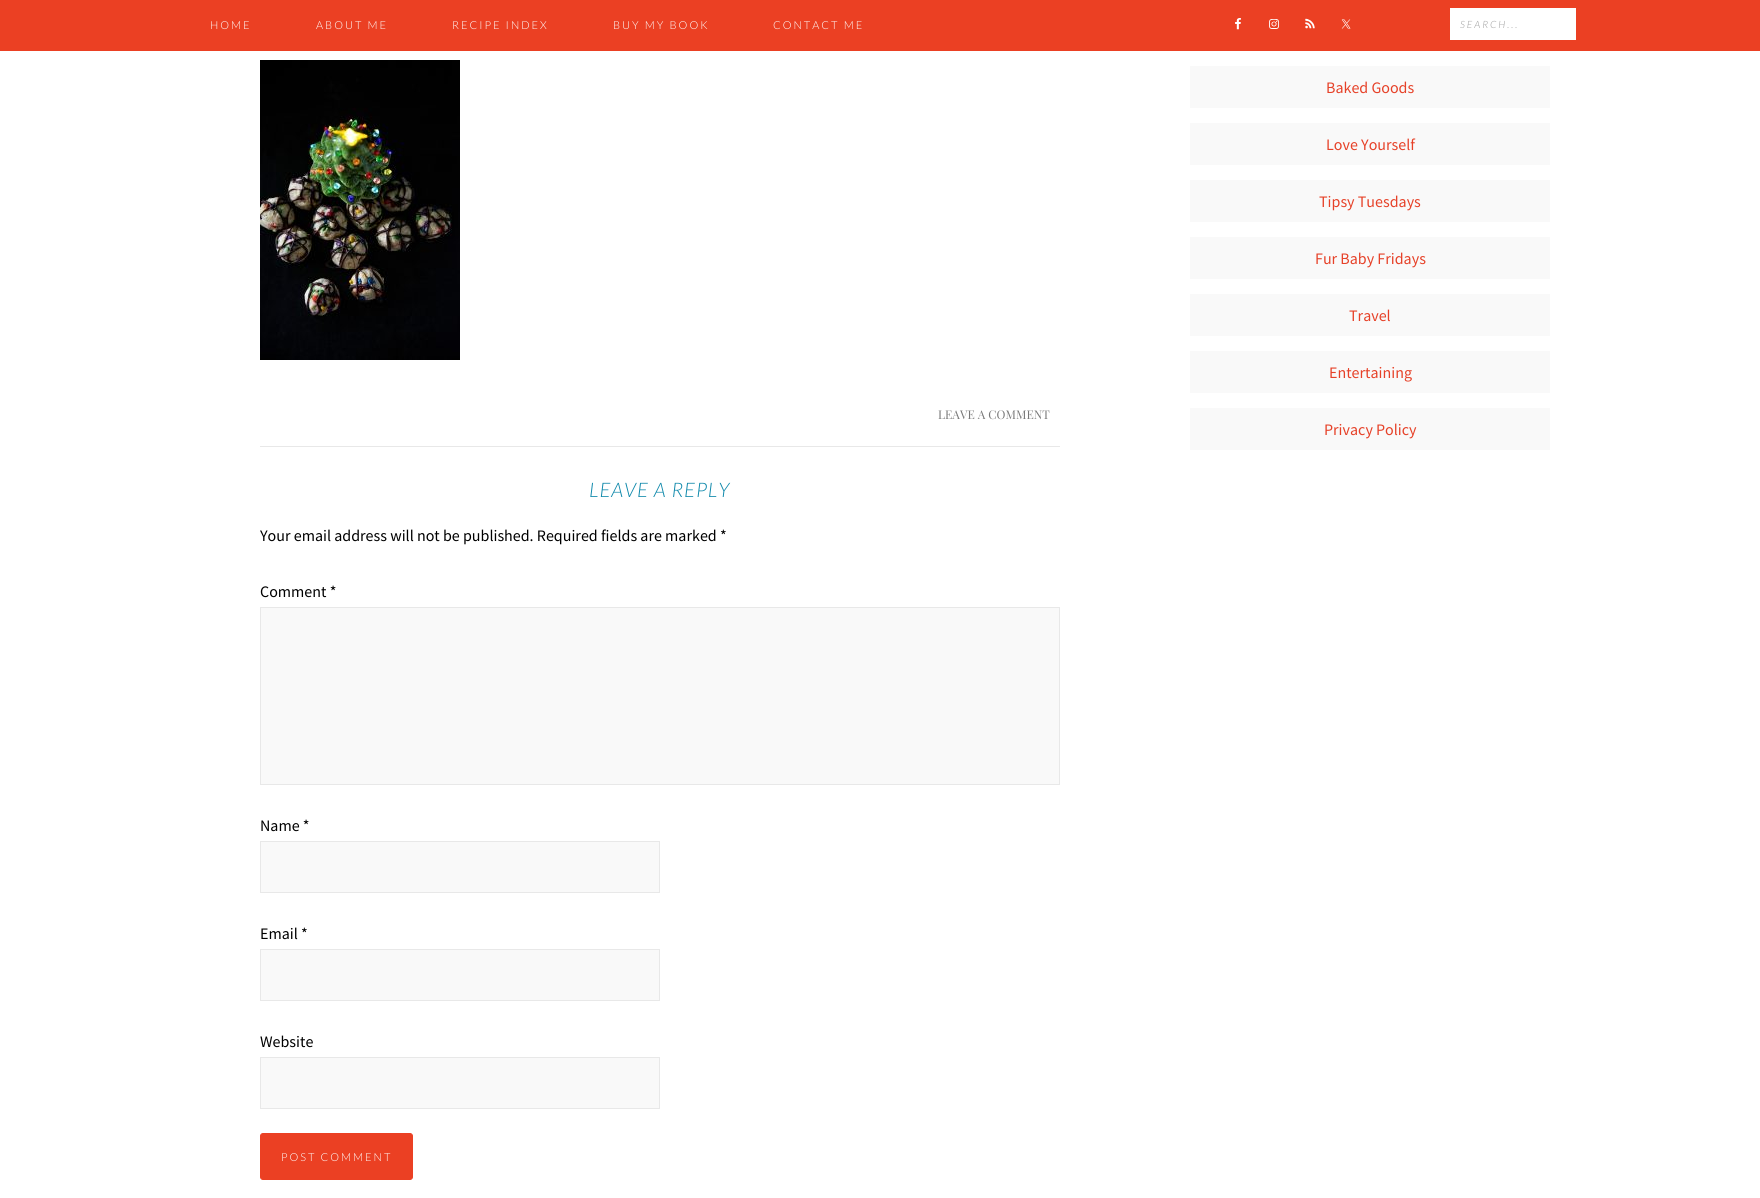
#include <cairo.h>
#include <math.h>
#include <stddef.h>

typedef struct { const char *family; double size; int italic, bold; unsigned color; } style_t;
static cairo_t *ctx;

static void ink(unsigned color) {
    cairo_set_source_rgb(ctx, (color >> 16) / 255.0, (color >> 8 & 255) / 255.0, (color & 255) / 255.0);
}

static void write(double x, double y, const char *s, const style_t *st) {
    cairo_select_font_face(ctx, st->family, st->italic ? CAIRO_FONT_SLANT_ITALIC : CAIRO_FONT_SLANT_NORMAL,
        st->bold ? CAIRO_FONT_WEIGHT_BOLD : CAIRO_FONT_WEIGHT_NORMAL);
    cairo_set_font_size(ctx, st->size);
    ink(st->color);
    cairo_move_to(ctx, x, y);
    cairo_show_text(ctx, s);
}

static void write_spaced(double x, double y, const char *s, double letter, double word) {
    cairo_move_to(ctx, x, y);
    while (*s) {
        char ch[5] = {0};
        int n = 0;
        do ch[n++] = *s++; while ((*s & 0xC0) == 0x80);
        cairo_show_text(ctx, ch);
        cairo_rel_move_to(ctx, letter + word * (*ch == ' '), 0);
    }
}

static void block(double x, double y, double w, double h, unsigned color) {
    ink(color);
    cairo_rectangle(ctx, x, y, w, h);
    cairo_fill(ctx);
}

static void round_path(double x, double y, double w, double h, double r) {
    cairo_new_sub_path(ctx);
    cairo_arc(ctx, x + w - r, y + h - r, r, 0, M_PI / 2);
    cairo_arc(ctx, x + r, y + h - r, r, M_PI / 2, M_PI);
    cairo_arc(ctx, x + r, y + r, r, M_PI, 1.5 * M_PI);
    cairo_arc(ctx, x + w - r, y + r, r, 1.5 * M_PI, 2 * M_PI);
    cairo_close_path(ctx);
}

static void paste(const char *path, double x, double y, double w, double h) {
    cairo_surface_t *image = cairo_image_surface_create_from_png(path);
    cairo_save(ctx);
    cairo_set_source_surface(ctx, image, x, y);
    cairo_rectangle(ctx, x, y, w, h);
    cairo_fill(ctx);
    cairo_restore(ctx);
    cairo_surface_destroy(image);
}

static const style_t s1 = {"Source Sans Pro", 16, 0, 0, 0xe64128};
static const style_t s2 = {"Playfair Display", 12, 0, 0, 0x777777};
static const style_t s3 = {"Source Sans Pro", 16, 0, 0, 0x000000};

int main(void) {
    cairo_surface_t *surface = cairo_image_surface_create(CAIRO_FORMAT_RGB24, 1760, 1198);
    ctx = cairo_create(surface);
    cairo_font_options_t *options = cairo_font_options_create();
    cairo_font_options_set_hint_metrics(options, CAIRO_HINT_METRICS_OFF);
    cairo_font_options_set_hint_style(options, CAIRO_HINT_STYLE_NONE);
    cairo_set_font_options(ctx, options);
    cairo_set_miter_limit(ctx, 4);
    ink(0xffffff);
    cairo_paint(ctx);
    block(0, 0, 1760, 51, 0xeb4023);
    cairo_select_font_face(ctx, "Lato Light", CAIRO_FONT_SLANT_NORMAL, CAIRO_FONT_WEIGHT_NORMAL);
    cairo_set_font_size(ctx, 11);
    ink(0xffffff);
    write_spaced(210, 29, "HOME", 2, 0);
    write_spaced(316, 29, "ABOUT ME", 2, 0);
    write_spaced(452, 29, "RECIPE INDEX", 2, 0);
    write_spaced(613, 29, "BUY MY BOOK", 2, 0);
    write_spaced(773, 29, "CONTACT ME", 2, 0);
    paste("pic1.png", 1235, 18, 6, 12);
    paste("pic2.png", 1269, 19, 11, 10);
    paste("pic3.png", 1305, 18, 10, 11);
    paste("pic4.png", 1341, 19, 10, 10);
    block(1450, 8, 126, 32, 0xffffff);
    cairo_select_font_face(ctx, "Lato Light", CAIRO_FONT_SLANT_ITALIC, CAIRO_FONT_WEIGHT_NORMAL);
    cairo_set_font_size(ctx, 10);
    ink(0x999999);
    write_spaced(1460, 28, "SEARCH...", 2, 0);
    block(1190, 66, 360, 42, 0xf9f9f9);
    write(1326, 93, "Baked Goods", &s1);
    block(1190, 123, 360, 42, 0xf9f9f9);
    write(1326, 150, "Love Yourself", &s1);
    block(1190, 180, 360, 42, 0xf9f9f9);
    write(1319, 207, "Tipsy Tuesdays", &s1);
    block(1190, 237, 360, 42, 0xf9f9f9);
    write(1315, 264, "Fur Baby Fridays", &s1);
    block(1190, 294, 360, 42, 0xf9f9f9);
    write(1349, 321, "Travel", &s1);
    block(1190, 351, 360, 42, 0xf9f9f9);
    write(1329, 378, "Entertaining", &s1);
    block(1190, 408, 360, 42, 0xf9f9f9);
    write(1324, 435, "Privacy Policy", &s1);
    block(260, 446, 800, 1, 0xe8e8e8);
    paste("pic5.png", 260, 60, 200, 300);
    write(938, 419, "LEAVE A COMMENT", &s2);
    cairo_select_font_face(ctx, "Lato Light", CAIRO_FONT_SLANT_ITALIC, CAIRO_FONT_WEIGHT_NORMAL);
    cairo_set_font_size(ctx, 20);
    ink(0x1089ab);
    write_spaced(589, 497, "LEAVE A REPLY", 1, 0);
    write(260, 541, "Your email address will not be published. Required fields are marked *", &s3);
    write(260, 597, "Comment *", &s3);
    ink(0xf9f9f9);
    cairo_rectangle(ctx, 260.5, 607.5, 799, 177);
    cairo_fill_preserve(ctx);
    ink(0xe8e8e8);
    cairo_set_line_width(ctx, 1);
    cairo_stroke(ctx);
    write(260, 831, "Name *", &s3);
    ink(0xf9f9f9);
    cairo_rectangle(ctx, 260.5, 841.5, 399, 51);
    cairo_fill_preserve(ctx);
    ink(0xe8e8e8);
    cairo_stroke(ctx);
    write(260, 939, "Email *", &s3);
    ink(0xf9f9f9);
    cairo_rectangle(ctx, 260.5, 949.5, 399, 51);
    cairo_fill_preserve(ctx);
    ink(0xe8e8e8);
    cairo_stroke(ctx);
    write(260, 1047, "Website", &s3);
    ink(0xf9f9f9);
    cairo_rectangle(ctx, 260.5, 1057.5, 399, 51);
    cairo_fill_preserve(ctx);
    ink(0xe8e8e8);
    cairo_stroke(ctx);
    ink(0xeb4023);
    round_path(260.5, 1133.5, 152, 46, 2.5);
    cairo_fill_preserve(ctx);
    cairo_stroke(ctx);
    cairo_select_font_face(ctx, "Lato Light", CAIRO_FONT_SLANT_NORMAL, CAIRO_FONT_WEIGHT_NORMAL);
    cairo_set_font_size(ctx, 11);
    ink(0xffffff);
    write_spaced(281, 1161, "POST COMMENT", 2, 0);
    cairo_surface_write_to_png(surface, "screenshot.png");
    cairo_font_options_destroy(options);
    cairo_destroy(ctx);
    cairo_surface_destroy(surface);
    return 0;
}
